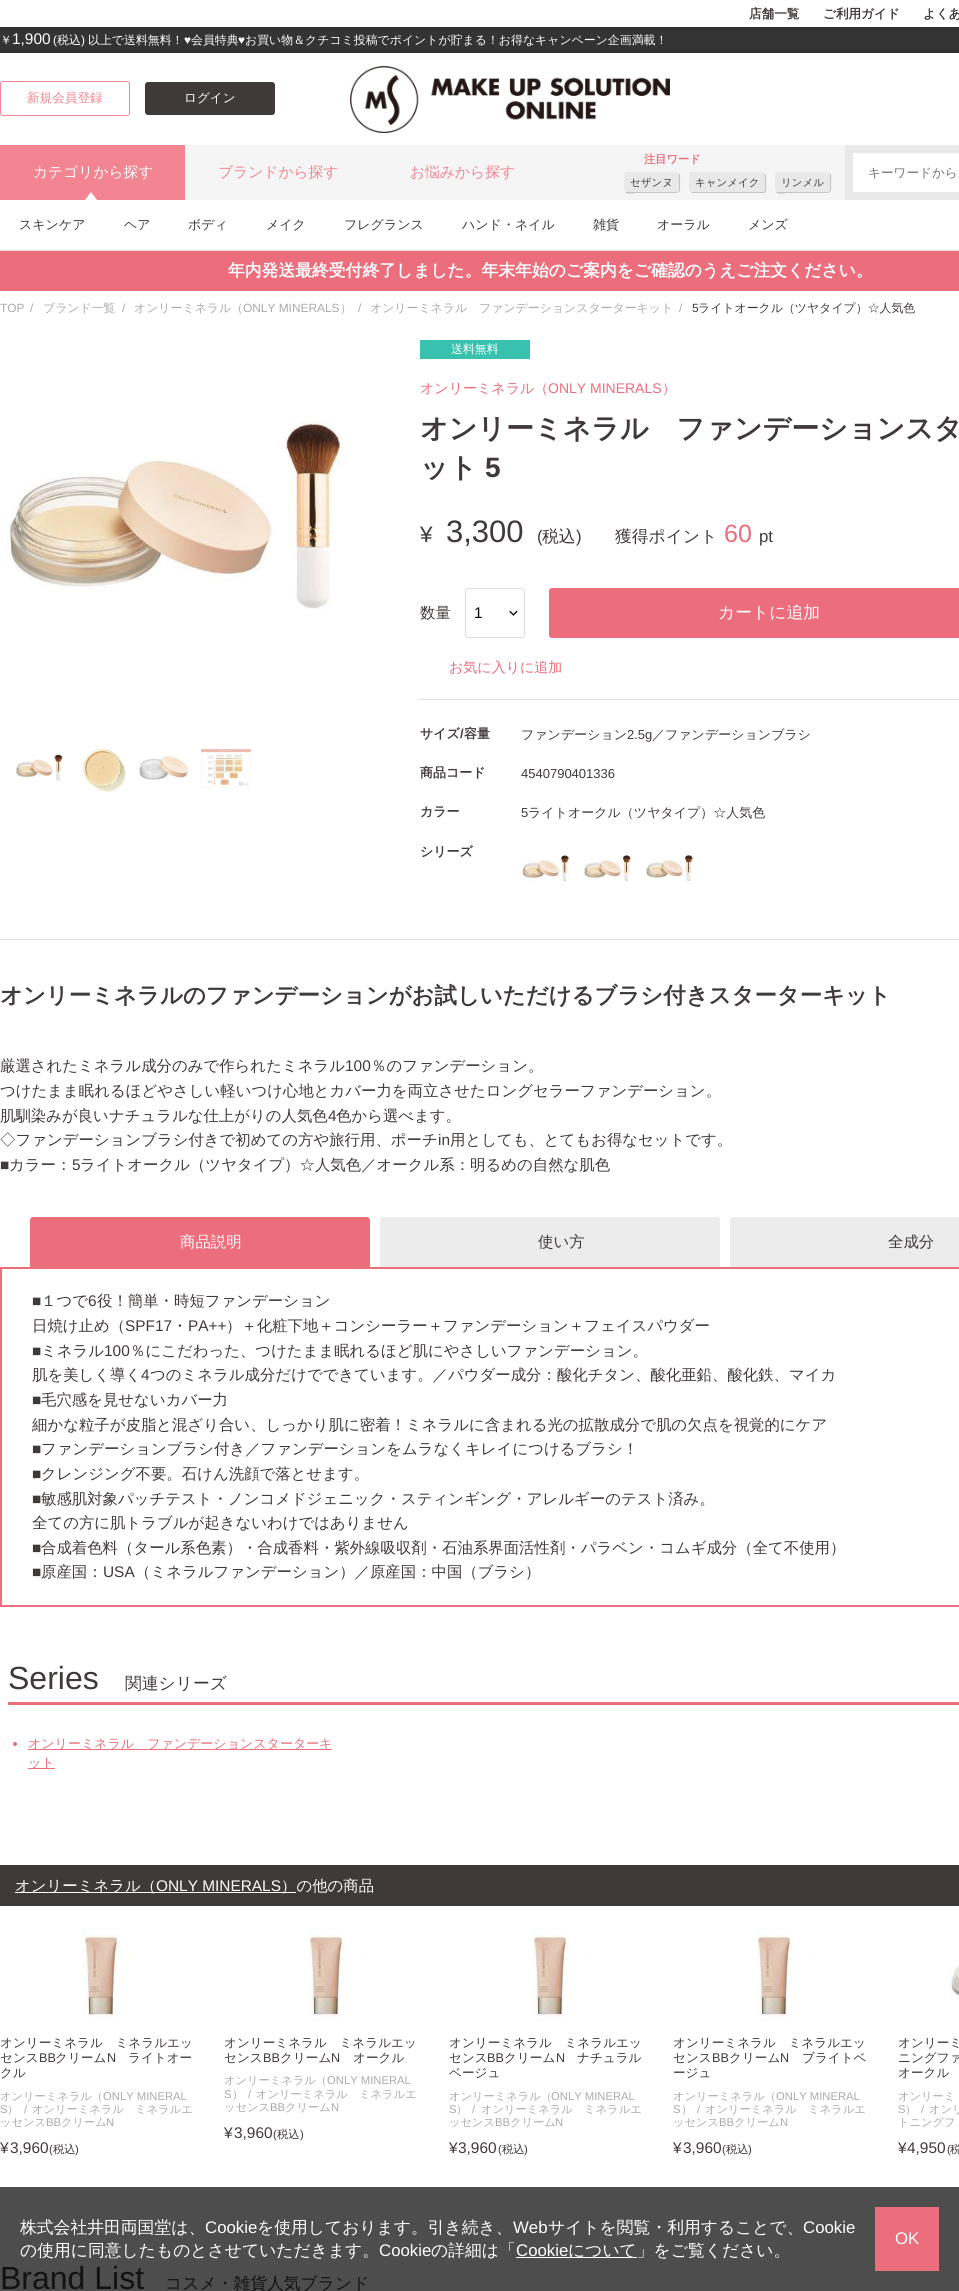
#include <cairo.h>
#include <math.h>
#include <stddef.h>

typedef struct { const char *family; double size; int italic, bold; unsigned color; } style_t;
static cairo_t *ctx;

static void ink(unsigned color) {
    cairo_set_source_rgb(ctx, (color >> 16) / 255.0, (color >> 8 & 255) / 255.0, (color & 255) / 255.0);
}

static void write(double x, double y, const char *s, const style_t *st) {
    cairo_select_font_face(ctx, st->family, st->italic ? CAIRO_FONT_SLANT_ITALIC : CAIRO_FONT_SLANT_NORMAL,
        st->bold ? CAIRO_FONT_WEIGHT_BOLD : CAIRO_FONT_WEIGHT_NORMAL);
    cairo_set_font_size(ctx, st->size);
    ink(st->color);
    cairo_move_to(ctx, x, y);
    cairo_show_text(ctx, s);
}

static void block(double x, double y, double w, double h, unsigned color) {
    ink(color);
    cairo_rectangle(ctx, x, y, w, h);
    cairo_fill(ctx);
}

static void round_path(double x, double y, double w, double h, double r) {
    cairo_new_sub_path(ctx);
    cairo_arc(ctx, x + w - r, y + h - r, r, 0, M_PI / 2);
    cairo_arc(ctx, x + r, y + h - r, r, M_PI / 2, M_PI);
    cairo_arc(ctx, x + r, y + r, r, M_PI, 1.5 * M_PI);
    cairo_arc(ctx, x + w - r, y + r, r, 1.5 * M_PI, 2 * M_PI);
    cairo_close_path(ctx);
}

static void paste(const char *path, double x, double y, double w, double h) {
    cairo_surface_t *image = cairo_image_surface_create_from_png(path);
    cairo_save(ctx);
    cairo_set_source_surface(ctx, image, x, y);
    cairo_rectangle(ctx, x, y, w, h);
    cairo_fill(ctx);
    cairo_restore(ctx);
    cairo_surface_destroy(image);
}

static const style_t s1 = {"WenQuanYi Zen Hei", 12.6, 0, 1, 0x3f3a39};
static const style_t s2 = {"WenQuanYi Zen Hei Medium", 11.9, 0, 0, 0xffffff};
static const style_t s3 = {"Liberation Sans", 15.4, 0, 0, 0xffffff};
static const style_t s4 = {"Liberation Sans", 11.9, 0, 0, 0xffffff};
static const style_t s5 = {"WenQuanYi Zen Hei Medium", 12.6, 0, 0, 0xf38491};
static const style_t s6 = {"WenQuanYi Zen Hei Medium", 12.6, 0, 0, 0xffffff};
static const style_t s7 = {"WenQuanYi Zen Hei Medium", 14.75, 0, 0, 0xffffff};
static const style_t s8 = {"WenQuanYi Zen Hei Medium", 14.75, 0, 0, 0xf38491};
static const style_t s9 = {"WenQuanYi Zen Hei", 11.25, 0, 1, 0xec6d7b};
static const style_t s10 = {"WenQuanYi Zen Hei Medium", 10.5, 0, 0, 0x3f3a39};
static const style_t s11 = {"WenQuanYi Zen Hei Medium", 12.6, 0, 0, 0x757575};
static const style_t s12 = {"WenQuanYi Zen Hei Medium", 13, 0, 0, 0x3f3a39};
static const style_t s13 = {"WenQuanYi Zen Hei", 16.8, 0, 1, 0xffffff};
static const style_t s14 = {"Liberation Sans", 11.9, 0, 0, 0xaaaaaa};
static const style_t s15 = {"WenQuanYi Zen Hei Medium", 11.9, 0, 0, 0xaaaaaa};
static const style_t s16 = {"Liberation Sans", 11.9, 0, 0, 0x3f3a39};
static const style_t s17 = {"WenQuanYi Zen Hei Medium", 11.9, 0, 0, 0x3f3a39};
static const style_t s18 = {"WenQuanYi Zen Hei Medium", 14, 0, 0, 0xec6d7b};
static const style_t s19 = {"Liberation Sans", 14, 0, 0, 0xec6d7b};
static const style_t s20 = {"WenQuanYi Zen Hei", 28, 0, 1, 0x3f3a39};
static const style_t s21 = {"Liberation Sans", 28, 0, 1, 0x3f3a39};
static const style_t s22 = {"Liberation Sans", 22.4, 0, 0, 0x3f3a39};
static const style_t s23 = {"Liberation Sans", 31, 0, 0, 0x3f3a39};
static const style_t s24 = {"Liberation Sans", 16.8, 0, 0, 0x3f3a39};
static const style_t s25 = {"WenQuanYi Zen Hei Medium", 16.8, 0, 0, 0x3f3a39};
static const style_t s26 = {"Liberation Sans", 25, 0, 0, 0xec6d7b};
static const style_t s27 = {"WenQuanYi Zen Hei Medium", 15.4, 0, 0, 0x3f3a39};
static const style_t s28 = {"Liberation Sans", 15.4, 0, 0, 0x000000};
static const style_t s29 = {"WenQuanYi Zen Hei Medium", 16.8, 0, 0, 0xffffff};
static const style_t s30 = {"WenQuanYi Zen Hei", 13, 0, 1, 0x3f3a39};
static const style_t s31 = {"Liberation Sans", 13, 0, 1, 0x3f3a39};
static const style_t s32 = {"Liberation Sans", 13, 0, 0, 0x3f3a39};
static const style_t s33 = {"WenQuanYi Zen Hei", 22.4, 0, 1, 0x3f3a39};
static const style_t s34 = {"Liberation Sans", 15.4, 0, 0, 0x3f3a39};
static const style_t s35 = {"WenQuanYi Zen Hei Medium", 15.4, 0, 0, 0xffffff};
static const style_t s36 = {"Liberation Sans", 32, 0, 0, 0x3f3a39};
static const style_t s37 = {"WenQuanYi Zen Hei Medium", 13, 0, 0, 0xec6d7b};
static const style_t s38 = {"WenQuanYi Zen Hei Medium", 12.6, 0, 0, 0x3f3a39};
static const style_t s39 = {"Liberation Sans", 12.6, 0, 0, 0x3f3a39};
static const style_t s40 = {"WenQuanYi Zen Hei Medium", 11.25, 0, 0, 0xaaaaaa};
static const style_t s41 = {"Liberation Sans", 11.25, 0, 0, 0xaaaaaa};
static const style_t s42 = {"Liberation Sans", 11.25, 0, 0, 0x3f3a39};
static const style_t s43 = {"WenQuanYi Zen Hei Medium", 11.25, 0, 0, 0x3f3a39};
static const style_t s44 = {"Liberation Sans", 16.8, 0, 0, 0xffffff};
static const style_t s45 = {"Liberation Sans", 32, 0, 0, 0x131111};
static const style_t s46 = {"WenQuanYi Zen Hei Medium", 16.8, 0, 0, 0x131111};

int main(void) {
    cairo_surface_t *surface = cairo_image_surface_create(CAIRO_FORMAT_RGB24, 959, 2291);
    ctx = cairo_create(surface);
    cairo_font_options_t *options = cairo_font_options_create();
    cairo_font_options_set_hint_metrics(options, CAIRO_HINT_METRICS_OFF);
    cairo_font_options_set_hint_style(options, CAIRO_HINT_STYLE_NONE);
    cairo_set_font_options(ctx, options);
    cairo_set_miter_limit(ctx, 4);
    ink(0xffffff);
    cairo_paint(ctx);
    block(0, 2187, 959, 104, 0x4d4d4d);
    write(749, 18, "店舗一覧", &s1);
    write(823, 18, "ご利用ガイド", &s1);
    write(923, 18, "よくあ", &s1);
    block(0, 27, 959, 26, 0x333333);
    write(0, 44, "￥", &s2);
    write(12, 44, "1,900", &s3);
    write(53, 44, "(", &s4);
    write(57, 44, "税込", &s2);
    write(81, 44, ")", &s4);
    write(88, 44, "以上で送料無料！", &s2);
    write(184, 44, "♥", &s4);
    write(191, 44, "会員特典", &s2);
    write(238, 44, "♥", &s4);
    write(245, 44, "お買い物＆クチコミ投稿でポイントが貯まる！お得なキャンペーン企画満載！", &s2);
    round_path(0.5, 81.5, 129, 34, 2.5);
    ink(0xf38491);
    cairo_set_line_width(ctx, 1);
    cairo_stroke(ctx);
    write(27, 102, "新規会員登録", &s5);
    ink(0x3f3a39);
    round_path(145, 82, 130, 33, 3);
    cairo_fill(ctx);
    write(184, 102, "ログイン", &s6);
    paste("pic1.png", 350, 66, 320, 67);
    block(185, 145, 660, 55, 0xf5f5f5);
    block(0, 145, 185, 55, 0xf38491);
    write(33, 177, "カテゴリから探す", &s7);
    cairo_new_path(ctx);
    cairo_move_to(ctx, 97, 200);
    cairo_line_to(ctx, 85, 200);
    cairo_line_to(ctx, 91, 192);
    cairo_close_path(ctx);
    cairo_fill(ctx);
    write(218, 177, "ブランドから探す", &s8);
    write(410, 177, "お悩みから探す", &s8);
    write(644, 163, "注目ワード", &s9);
    ink(0xc4c4c4);
    cairo_new_path(ctx);
    cairo_move_to(ctx, 625, 192);
    cairo_curve_to(ctx, 627, 195, 635, 193, 636, 193);
    cairo_line_to(ctx, 669, 193);
    cairo_curve_to(ctx, 682, 193, 680, 193, 680, 181);
    cairo_curve_to(ctx, 680, 179, 681, 175, 679, 173);
    cairo_line_to(ctx, 679, 175);
    cairo_line_to(ctx, 679, 189);
    cairo_curve_to(ctx, 679, 191, 678, 192, 676, 192);
    cairo_line_to(ctx, 627, 192);
    cairo_close_path(ctx);
    cairo_fill(ctx);
    ink(0xe9e9e9);
    round_path(624, 172, 55, 20, 3);
    cairo_fill(ctx);
    write(630, 186, "セザンヌ", &s10);
    ink(0xc4c4c4);
    cairo_new_path(ctx);
    cairo_move_to(ctx, 690, 192);
    cairo_curve_to(ctx, 691, 192, 692, 193, 693, 193);
    cairo_line_to(ctx, 763, 193);
    cairo_curve_to(ctx, 765, 193, 766, 192, 766, 190);
    cairo_line_to(ctx, 766, 176);
    cairo_curve_to(ctx, 766, 175, 765, 174, 765, 173);
    cairo_line_to(ctx, 765, 175);
    cairo_line_to(ctx, 765, 189);
    cairo_curve_to(ctx, 765, 191, 764, 192, 762, 192);
    cairo_line_to(ctx, 692, 192);
    cairo_close_path(ctx);
    cairo_fill(ctx);
    ink(0xe9e9e9);
    round_path(689, 172, 76, 20, 3);
    cairo_fill(ctx);
    write(695, 186, "キャンメイク", &s10);
    ink(0xc4c4c4);
    cairo_new_path(ctx);
    cairo_move_to(ctx, 776, 192);
    cairo_curve_to(ctx, 778, 195, 786, 193, 787, 193);
    cairo_line_to(ctx, 820, 193);
    cairo_curve_to(ctx, 833, 193, 831, 193, 831, 181);
    cairo_curve_to(ctx, 831, 179, 832, 175, 830, 173);
    cairo_line_to(ctx, 830, 175);
    cairo_line_to(ctx, 830, 189);
    cairo_curve_to(ctx, 830, 191, 829, 192, 827, 192);
    cairo_line_to(ctx, 778, 192);
    cairo_close_path(ctx);
    cairo_fill(ctx);
    ink(0xe9e9e9);
    round_path(775, 172, 55, 20, 3);
    cairo_fill(ctx);
    write(781, 186, "リンメル", &s10);
    block(845, 145, 114, 55, 0xe9e9e9);
    block(853, 153, 106, 39, 0xffffff);
    write(868, 177, "キーワードから", &s11);
    block(0, 250, 959, 1, 0xdddddd);
    write(19, 229, "スキンケア", &s12);
    write(124, 229, "ヘア", &s12);
    write(188, 229, "ボディ", &s12);
    write(266, 229, "メイク", &s12);
    write(344, 229, "フレグランス", &s12);
    write(462, 229, "ハンド・ネイル", &s12);
    write(593, 229, "雑貨", &s12);
    write(657, 229, "オーラル", &s12);
    write(748, 229, "メンズ", &s12);
    block(0, 251, 959, 40, 0xec6d7b);
    write(228, 276, "年内発送最終受付終了しました。年末年始のご案内をご確認のうえご注文ください。", &s13);
    write(0, 312, "TOP", &s14);
    write(30, 312, "/", &s14);
    write(43, 312, "ブランド一覧", &s15);
    write(122, 312, "/", &s14);
    write(134, 312, "オンリーミネラル（", &s15);
    write(243, 312, "ONLY MINERALS", &s14);
    write(340, 312, "）", &s15);
    write(358, 312, "/", &s14);
    write(370, 312, "オンリーミネラル　ファンデーションスターターキット", &s15);
    write(679, 312, "/", &s14);
    write(692, 312, "5", &s16);
    write(698, 312, "ライトオークル（ツヤタイプ）☆人気色", &s17);
    block(0, 939, 959, 1, 0xdddddd);
    paste("pic2.png", 6, 421, 340, 189);
    paste("pic3.png", 16, 754, 47, 27);
    paste("pic4.png", 83, 748, 43, 44);
    paste("pic5.png", 139, 756, 50, 24);
    paste("pic6.png", 201, 748, 50, 40);
    block(420, 340, 110, 19, 0x38c2ad);
    write(451, 353, "送料無料", &s2);
    write(420, 393, "オンリーミネラル（", &s18);
    write(548, 393, "ONLY MINERALS", &s19);
    write(662, 393, "）", &s18);
    write(420, 438, "オンリーミネラル　ファンデーションスタ", &s20);
    write(420, 477, "ット", &s20);
    write(485, 477, "5", &s21);
    write(420, 542, "¥", &s22);
    write(446, 542, "3,300", &s23);
    write(537, 542, "(", &s24);
    write(542, 542, "税込", &s25);
    write(576, 542, ")", &s24);
    write(615, 542, "獲得ポイント", &s25);
    write(724, 542, "60", &s26);
    write(759, 542, "pt", &s24);
    write(420, 618, "数量", &s27);
    round_path(465.5, 588.5, 59, 49, 2.5);
    ink(0xdddddd);
    cairo_stroke(ctx);
    write(474, 618, "1", &s28);
    paste("pic7.png", 509, 610, 9, 6);
    ink(0xec6d7b);
    round_path(549, 588, 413, 50, 3);
    cairo_fill(ctx);
    write(718, 618, "カートに追加", &s29);
    write(449, 672, "お気に入りに追加", &s18);
    block(420, 699, 539, 1, 0xdddddd);
    write(420, 738, "サイズ", &s30);
    write(460, 738, "/", &s31);
    write(464, 738, "容量", &s30);
    write(521, 739, "ファンデーション", &s12);
    write(627, 739, "2.5g", &s32);
    write(652, 739, "／ファンデーションブラシ", &s12);
    write(420, 777, "商品コード", &s30);
    write(521, 778, "4540790401336", &s32);
    write(420, 816, "カラー", &s30);
    write(521, 817, "5", &s32);
    write(528, 817, "ライトオークル（ツヤタイプ）☆人気色", &s12);
    write(420, 856, "シリーズ", &s30);
    paste("pic8.png", 521, 852, 48, 32);
    paste("pic9.png", 583, 852, 48, 32);
    paste("pic10.png", 645, 852, 48, 31);
    write(0, 1003, "オンリーミネラルのファンデーションがお試しいただけるブラシ付きスターターキット", &s33);
    write(0, 1071, "厳選されたミネラル成分のみで作られたミネラル", &s27);
    write(345, 1071, "100", &s34);
    write(371, 1071, "％のファンデーション。", &s27);
    write(0, 1096, "つけたまま眠れるほどやさしい軽いつけ心地とカバー力を両立させたロングセラーファンデーション。", &s27);
    write(0, 1121, "肌馴染みが良いナチュラルな仕上がりの人気色", &s27);
    write(328, 1121, "4", &s34);
    write(336, 1121, "色から選べます。", &s27);
    write(0, 1145, "◇ファンデーションブラシ付きで初めての方や旅行用、ポーチ", &s27);
    write(438, 1145, "in", &s34);
    write(450, 1145, "用としても、とてもお得なセットです。", &s27);
    write(0, 1170, "■", &s34);
    write(9, 1170, "カラー：", &s27);
    write(72, 1170, "5", &s34);
    write(80, 1170, "ライトオークル（ツヤタイプ）☆人気色／オークル系：明るめの自然な肌色", &s27);
    ink(0xec6d7b);
    cairo_new_path(ctx);
    cairo_move_to(ctx, 33, 1217);
    cairo_line_to(ctx, 367, 1217);
    cairo_curve_to(ctx, 368.5, 1217, 370, 1218.5, 370, 1220);
    cairo_line_to(ctx, 370, 1267);
    cairo_line_to(ctx, 30, 1267);
    cairo_line_to(ctx, 30, 1220);
    cairo_curve_to(ctx, 30, 1218.5, 31.5, 1217, 33, 1217);
    cairo_close_path(ctx);
    cairo_fill(ctx);
    write(180, 1247, "商品説明", &s35);
    ink(0xececec);
    cairo_new_path(ctx);
    cairo_move_to(ctx, 383, 1217);
    cairo_line_to(ctx, 717, 1217);
    cairo_curve_to(ctx, 718.5, 1217, 720, 1218.5, 720, 1220);
    cairo_line_to(ctx, 720, 1267);
    cairo_line_to(ctx, 380, 1267);
    cairo_line_to(ctx, 380, 1220);
    cairo_curve_to(ctx, 380, 1218.5, 381.5, 1217, 383, 1217);
    cairo_close_path(ctx);
    cairo_fill(ctx);
    write(538, 1247, "使い方", &s27);
    ink(0xececec);
    cairo_new_path(ctx);
    cairo_move_to(ctx, 733, 1217);
    cairo_line_to(ctx, 959, 1217);
    cairo_curve_to(ctx, 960.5, 1217, 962, 1218.5, 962, 1220);
    cairo_line_to(ctx, 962, 1267);
    cairo_line_to(ctx, 730, 1267);
    cairo_line_to(ctx, 730, 1220);
    cairo_curve_to(ctx, 730, 1218.5, 731.5, 1217, 733, 1217);
    cairo_close_path(ctx);
    cairo_fill(ctx);
    write(888, 1247, "全成分", &s27);
    cairo_rectangle(ctx, 1, 1268, 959, 338);
    ink(0xec6d7b);
    cairo_set_line_width(ctx, 2);
    cairo_stroke(ctx);
    write(32, 1306, "■", &s34);
    write(41, 1306, "１つで", &s27);
    write(88, 1306, "6", &s34);
    write(97, 1306, "役！簡単・時短ファンデーション", &s27);
    write(32, 1331, "日焼け止め（", &s27);
    write(125, 1331, "SPF17", &s34);
    write(172, 1331, "・", &s27);
    write(188, 1331, "PA++", &s34);
    write(226, 1331, "）＋化粧下地＋コンシーラー＋ファンデーション＋フェイスパウダー", &s27);
    write(32, 1356, "■", &s34);
    write(41, 1356, "ミネラル", &s27);
    write(104, 1356, "100", &s34);
    write(130, 1356, "％にこだわった、つけたまま眠れるほど肌にやさしいファンデーション。", &s27);
    write(32, 1380, "肌を美しく導く", &s27);
    write(141, 1380, "4", &s34);
    write(150, 1380, "つのミネラル成分だけでできています。／パウダー成分：酸化チタン、酸化亜鉛、酸化鉄、マイカ", &s27);
    write(32, 1405, "■", &s34);
    write(41, 1405, "毛穴感を見せないカバー力", &s27);
    write(32, 1430, "細かな粒子が皮脂と混ざり合い、しっかり肌に密着！ミネラルに含まれる光の拡散成分で肌の欠点を視覚的にケア", &s27);
    write(32, 1454, "■", &s34);
    write(41, 1454, "ファンデーションブラシ付き／ファンデーションをムラなくキレイにつけるブラシ！", &s27);
    write(32, 1479, "■", &s34);
    write(41, 1479, "クレンジング不要。石けん洗顔で落とせます。", &s27);
    write(32, 1504, "■", &s34);
    write(41, 1504, "敏感肌対象パッチテスト・ノンコメドジェニック・スティンギング・アレルギーのテスト済み。", &s27);
    write(32, 1528, "全ての方に肌トラブルが起きないわけではありません", &s27);
    write(32, 1553, "■", &s34);
    write(41, 1553, "合成着色料（タール系色素）・合成香料・紫外線吸収剤・石油系界面活性剤・パラベン・コムギ成分（全て不使用）", &s27);
    write(32, 1577, "■", &s34);
    write(41, 1577, "原産国：", &s27);
    write(103, 1577, "USA", &s34);
    write(135, 1577, "（ミネラルファンデーション）／原産国：中国（ブラシ）", &s27);
    block(8, 1702, 951, 3, 0xec6d7b);
    write(8, 1689, "Series", &s36);
    write(125, 1689, "関連シリーズ", &s25);
    ink(0xec6d7b);
    cairo_new_path(ctx);
    cairo_arc(ctx, 15, 1744, 2, 0, 2 * M_PI);
    cairo_fill(ctx);
    block(28, 1749, 304, 1, 0xec6d7b);
    write(28, 1748, "オンリーミネラル　ファンデーションスターターキ", &s37);
    block(28, 1768, 27, 1, 0xec6d7b);
    write(28, 1767, "ット", &s37);
    block(0, 1865, 959, 41, 0x3f3a39);
    block(15, 1892, 281, 1, 0xffffff);
    write(15, 1891, "オンリーミネラル（", &s35);
    write(156, 1891, "ONLY MINERALS", &s3);
    write(281, 1891, "）の他の商品", &s35);
    paste("pic11.png", 83, 1926, 48, 96);
    write(0, 2047, "オンリーミネラル　ミネラルエッ", &s38);
    write(0, 2062, "センス", &s38);
    write(39, 2062, "BB", &s39);
    write(55, 2062, "クリーム", &s38);
    write(107, 2062, "N", &s39);
    write(128, 2062, "ライトオー", &s38);
    write(0, 2077, "クル", &s38);
    write(0, 2100, "オンリーミネラル（", &s40);
    write(103, 2100, "ONLY MINERAL", &s41);
    write(0, 2113, "S", &s41);
    write(7, 2113, "）", &s40);
    write(24, 2113, "/", &s41);
    write(32, 2113, "オンリーミネラル　ミネラルエ", &s40);
    write(0, 2126, "ッセンス", &s40);
    write(46, 2126, "BB", &s41);
    write(61, 2126, "クリーム", &s40);
    write(106, 2126, "N", &s41);
    write(0, 2153, "¥", &s34);
    write(10, 2153, "3,960", &s34);
    write(49, 2153, "(", &s42);
    write(53, 2153, "税込", &s43);
    write(75, 2153, ")", &s42);
    paste("pic11.png", 308, 1926, 48, 96);
    write(224, 2047, "オンリーミネラル　ミネラルエッ", &s38);
    write(224, 2062, "センス", &s38);
    write(263, 2062, "BB", &s39);
    write(280, 2062, "クリーム", &s38);
    write(331, 2062, "N", &s39);
    write(353, 2062, "オークル", &s38);
    write(224, 2084, "オンリーミネラル（", &s40);
    write(327, 2084, "ONLY MINERAL", &s41);
    write(224, 2098, "S", &s41);
    write(232, 2098, "）", &s40);
    write(248, 2098, "/", &s41);
    write(256, 2098, "オンリーミネラル　ミネラルエ", &s40);
    write(224, 2111, "ッセンス", &s40);
    write(270, 2111, "BB", &s41);
    write(285, 2111, "クリーム", &s40);
    write(331, 2111, "N", &s41);
    write(224, 2138, "¥", &s34);
    write(234, 2138, "3,960", &s34);
    write(273, 2138, "(", &s42);
    write(277, 2138, "税込", &s43);
    write(300, 2138, ")", &s42);
    paste("pic11.png", 532, 1926, 48, 96);
    write(449, 2047, "オンリーミネラル　ミネラルエッ", &s38);
    write(449, 2062, "センス", &s38);
    write(487, 2062, "BB", &s39);
    write(504, 2062, "クリーム", &s38);
    write(556, 2062, "N", &s39);
    write(577, 2062, "ナチュラル", &s38);
    write(449, 2077, "ベージュ", &s38);
    write(449, 2100, "オンリーミネラル（", &s40);
    write(551, 2100, "ONLY MINERAL", &s41);
    write(449, 2113, "S", &s41);
    write(456, 2113, "）", &s40);
    write(472, 2113, "/", &s41);
    write(481, 2113, "オンリーミネラル　ミネラルエ", &s40);
    write(449, 2126, "ッセンス", &s40);
    write(495, 2126, "BB", &s41);
    write(510, 2126, "クリーム", &s40);
    write(555, 2126, "N", &s41);
    write(449, 2153, "¥", &s34);
    write(458, 2153, "3,960", &s34);
    write(498, 2153, "(", &s42);
    write(502, 2153, "税込", &s43);
    write(524, 2153, ")", &s42);
    paste("pic11.png", 756, 1926, 48, 96);
    write(673, 2047, "オンリーミネラル　ミネラルエッ", &s38);
    write(673, 2062, "センス", &s38);
    write(712, 2062, "BB", &s39);
    write(729, 2062, "クリーム", &s38);
    write(780, 2062, "N", &s39);
    write(802, 2062, "ブライトベ", &s38);
    write(673, 2077, "ージュ", &s38);
    write(673, 2100, "オンリーミネラル（", &s40);
    write(776, 2100, "ONLY MINERAL", &s41);
    write(673, 2113, "S", &s41);
    write(681, 2113, "）", &s40);
    write(697, 2113, "/", &s41);
    write(705, 2113, "オンリーミネラル　ミネラルエ", &s40);
    write(673, 2126, "ッセンス", &s40);
    write(719, 2126, "BB", &s41);
    write(734, 2126, "クリーム", &s40);
    write(780, 2126, "N", &s41);
    write(673, 2153, "¥", &s34);
    write(683, 2153, "3,960", &s34);
    write(722, 2153, "(", &s42);
    write(726, 2153, "税込", &s43);
    write(748, 2153, ")", &s42);
    paste("pic12.png", 949, 1965, 10, 34);
    write(898, 2047, "オンリーミ", &s38);
    write(898, 2062, "ニングファ", &s38);
    write(898, 2077, "オークル", &s38);
    write(898, 2100, "オンリーミ", &s40);
    write(898, 2113, "S", &s41);
    write(905, 2113, "）", &s40);
    write(921, 2113, "/", &s41);
    write(929, 2113, "オンリ", &s40);
    write(898, 2126, "トニングフ", &s40);
    write(898, 2153, "¥", &s34);
    write(907, 2153, "4,950", &s34);
    write(947, 2153, "(", &s42);
    write(950, 2153, "税", &s43);
    write(20, 2233, "株式会社井田両国堂は、", &s29);
    write(205, 2233, "Cookie", &s44);
    write(257, 2233, "を使用しております。引き続き、", &s29);
    write(513, 2233, "Web", &s44);
    write(548, 2233, "サイトを閲覧・利用することで、", &s29);
    write(803, 2233, "Cookie", &s44);
    write(20, 2256, "の使用に同意したものとさせていただきます。", &s29);
    write(379, 2256, "Cookie", &s44);
    write(431, 2256, "の詳細は「", &s29);
    write(516, 2256, "Cookie", &s44);
    block(516, 2257, 121, 1, 0xffffff);
    write(568, 2256, "について」をご覧ください。", &s29);
    block(875, 2207, 64, 64, 0xec6d7b);
    write(895, 2244, "OK", &s44);
    write(0, 2289, "Brand List", &s45);
    write(165, 2289, "コスメ・雑貨人気ブランド", &s46);
    cairo_surface_write_to_png(surface, "screenshot.png");
    cairo_font_options_destroy(options);
    cairo_destroy(ctx);
    cairo_surface_destroy(surface);
    return 0;
}
